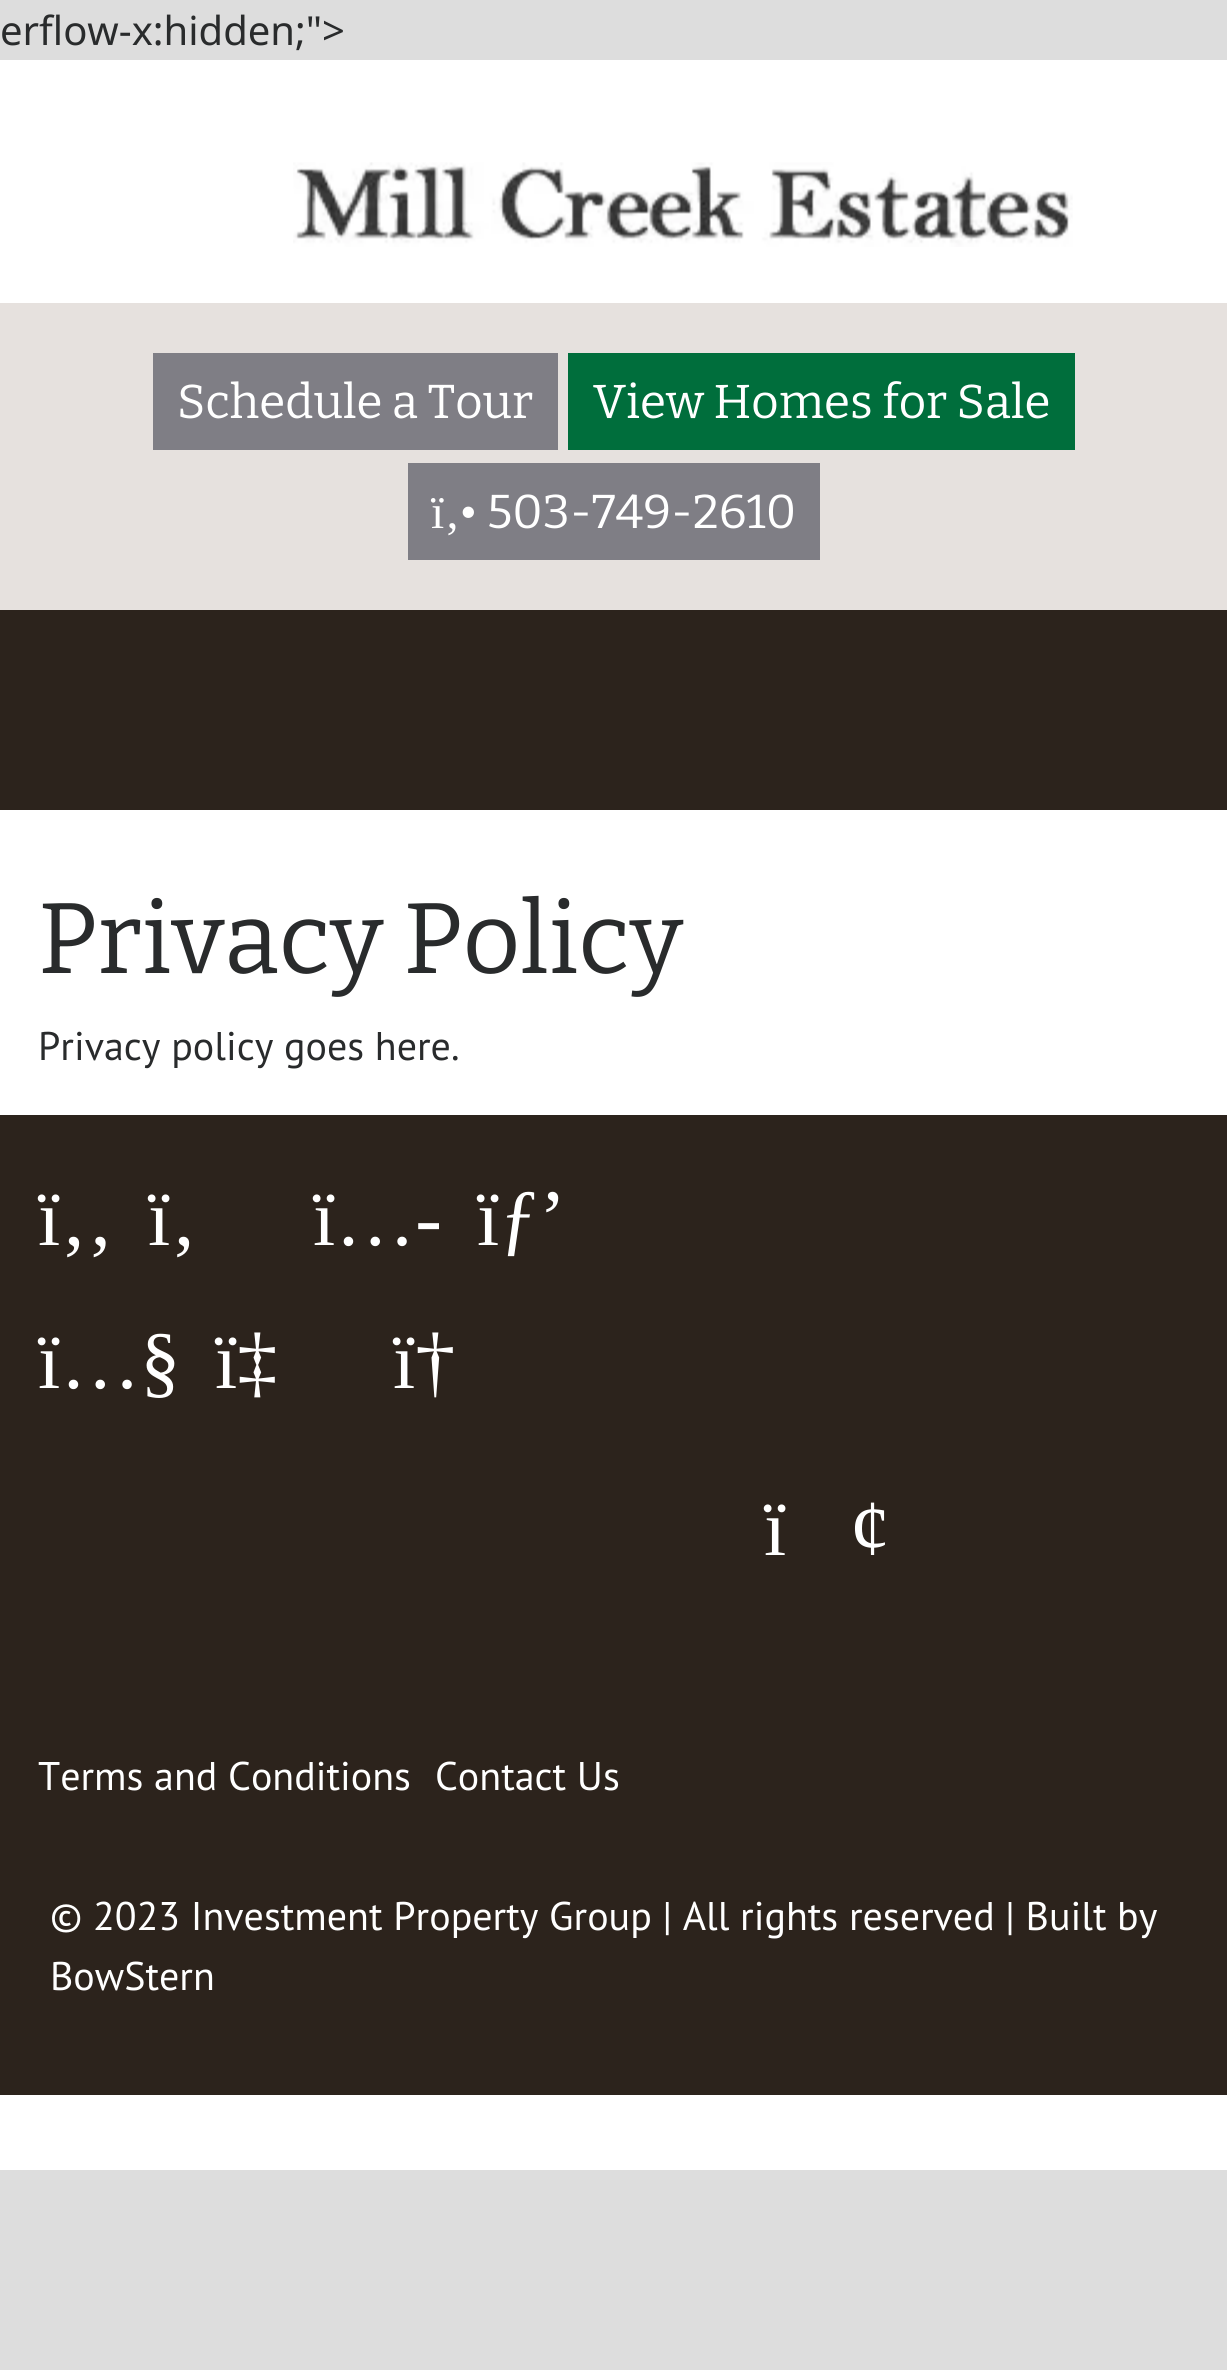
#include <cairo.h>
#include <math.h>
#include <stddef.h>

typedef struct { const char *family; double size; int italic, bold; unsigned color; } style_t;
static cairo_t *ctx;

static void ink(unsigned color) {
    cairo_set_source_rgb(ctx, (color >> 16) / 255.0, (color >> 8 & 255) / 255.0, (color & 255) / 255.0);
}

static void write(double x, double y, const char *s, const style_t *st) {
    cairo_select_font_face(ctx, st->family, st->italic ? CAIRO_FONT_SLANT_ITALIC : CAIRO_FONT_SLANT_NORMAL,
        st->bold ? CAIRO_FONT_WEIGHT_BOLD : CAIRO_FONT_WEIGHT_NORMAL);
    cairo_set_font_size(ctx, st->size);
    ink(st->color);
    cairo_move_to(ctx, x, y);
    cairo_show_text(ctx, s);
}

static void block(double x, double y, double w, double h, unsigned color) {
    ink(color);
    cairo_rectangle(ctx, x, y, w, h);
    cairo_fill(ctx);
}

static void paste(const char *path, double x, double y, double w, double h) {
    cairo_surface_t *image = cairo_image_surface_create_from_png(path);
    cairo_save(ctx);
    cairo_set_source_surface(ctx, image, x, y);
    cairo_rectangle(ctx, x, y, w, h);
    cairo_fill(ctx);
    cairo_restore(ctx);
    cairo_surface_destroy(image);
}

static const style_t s1 = {"Noto Sans", 40, 0, 0, 0x292b2c};
static const style_t s2 = {"Bitter Thin", 47.5, 0, 0, 0xffffff};
static const style_t s3 = {"Liberation Serif", 47.5, 0, 0, 0xffffff};
static const style_t s4 = {"Bitter Thin", 100, 0, 0, 0x292b2c};
static const style_t s5 = {"PT Sans", 40, 0, 0, 0x292b2c};
static const style_t s6 = {"Liberation Serif", 80, 0, 0, 0xffffff};
static const style_t s7 = {"PT Sans", 40, 0, 0, 0xffffff};

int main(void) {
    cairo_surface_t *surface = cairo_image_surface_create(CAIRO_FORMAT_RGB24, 1227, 2370);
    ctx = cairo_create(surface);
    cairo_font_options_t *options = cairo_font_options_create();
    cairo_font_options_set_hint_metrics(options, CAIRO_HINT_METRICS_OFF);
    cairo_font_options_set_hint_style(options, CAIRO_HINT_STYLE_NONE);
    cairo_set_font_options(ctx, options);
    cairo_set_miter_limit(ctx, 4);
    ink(0xdddddd);
    cairo_paint(ctx);
    write(0, 45, "erflow-x:hidden;\">", &s1);
    block(0, 60, 1227, 243, 0xffffff);
    paste("pic1.png", 293, 162, 780, 85);
    block(0, 303, 1227, 307, 0xe6e1de);
    block(153, 353, 405, 97, 0x7f7e85);
    write(177, 418, "Schedule a Tour", &s2);
    block(568, 353, 507, 97, 0x006e3c);
    write(593, 418, "View Homes for Sale", &s2);
    block(408, 463, 412, 97, 0x7f7e85);
    write(431, 528, "ï‚•", &s3);
    write(487, 528, "503-749-2610", &s2);
    block(0, 610, 1227, 200, 0x2c231c);
    block(0, 810, 1227, 1360, 0xffffff);
    write(38, 973, "Privacy Policy", &s4);
    write(38, 1060, "Privacy policy goes here.", &s5);
    block(0, 1115, 1227, 980, 0x2c231c);
    write(38, 1245, "ï‚‚", &s6);
    write(148, 1245, "ï‚", &s6);
    write(313, 1245, "ï…-", &s6);
    write(477, 1245, "ïƒ’", &s6);
    write(38, 1388, "ï…§", &s6);
    write(215, 1388, "ï‡", &s6);
    write(393, 1388, "ï†", &s6);
    write(764, 1555, "ï", &s6);
    write(850, 1555, "¢", &s6);
    write(38, 1790, "Terms and Conditions", &s7);
    write(435, 1790, "Contact Us", &s7);
    write(50, 1930, "© 2023 Investment Property Group | All rights reserved | Built by", &s7);
    write(50, 1990, "BowStern", &s7);
    cairo_surface_write_to_png(surface, "screenshot.png");
    cairo_font_options_destroy(options);
    cairo_destroy(ctx);
    cairo_surface_destroy(surface);
    return 0;
}
